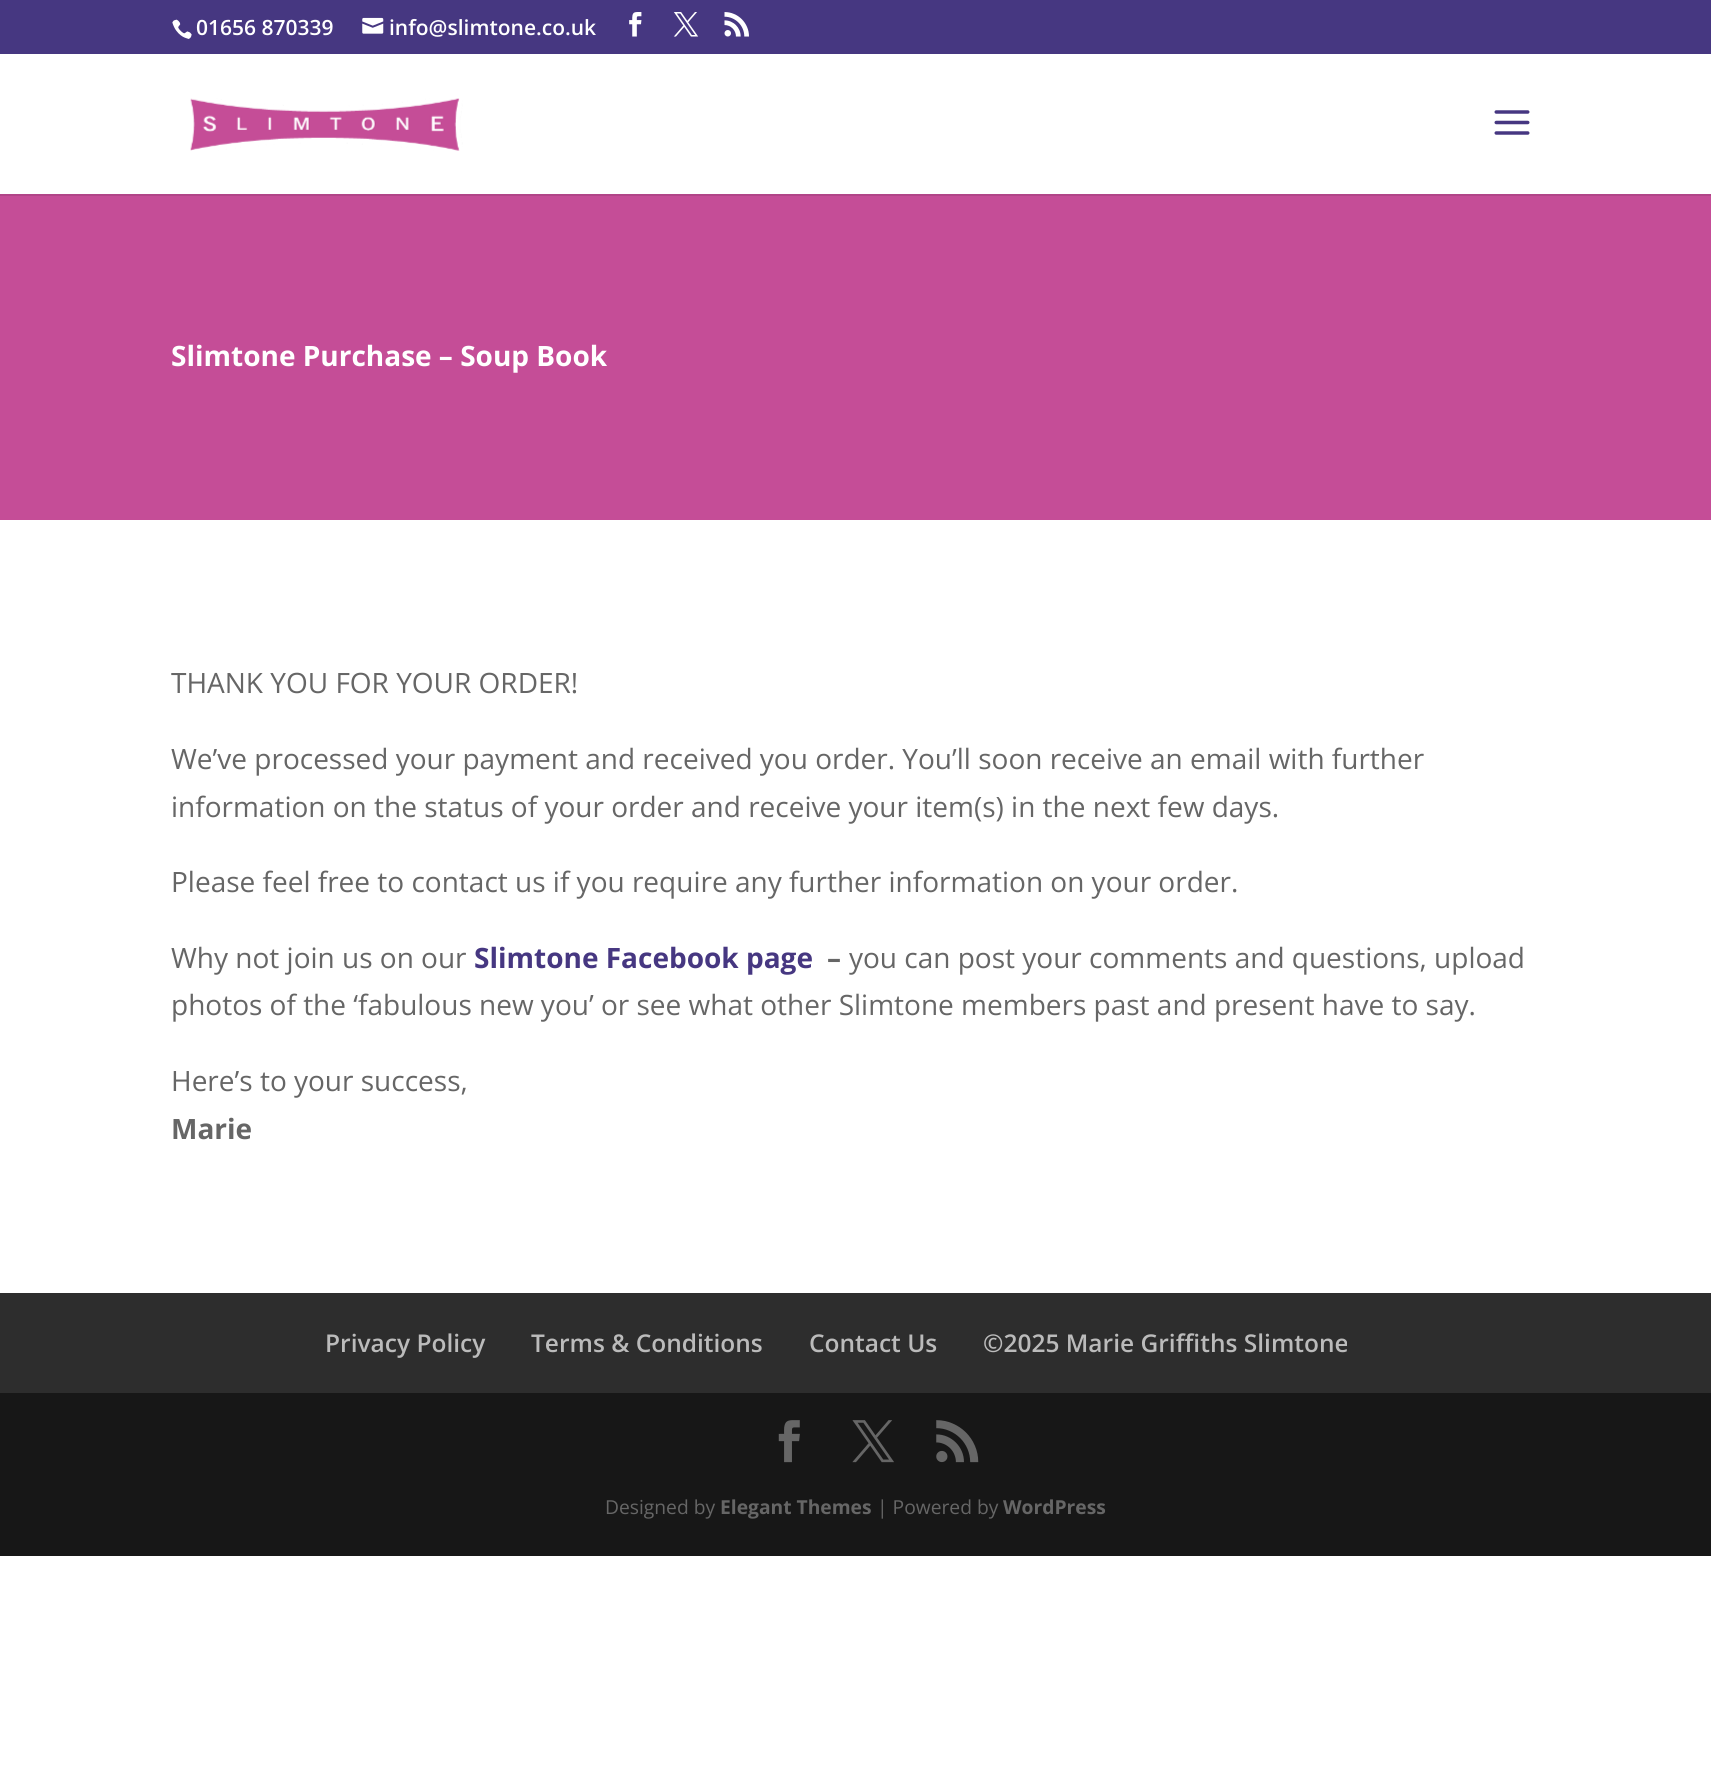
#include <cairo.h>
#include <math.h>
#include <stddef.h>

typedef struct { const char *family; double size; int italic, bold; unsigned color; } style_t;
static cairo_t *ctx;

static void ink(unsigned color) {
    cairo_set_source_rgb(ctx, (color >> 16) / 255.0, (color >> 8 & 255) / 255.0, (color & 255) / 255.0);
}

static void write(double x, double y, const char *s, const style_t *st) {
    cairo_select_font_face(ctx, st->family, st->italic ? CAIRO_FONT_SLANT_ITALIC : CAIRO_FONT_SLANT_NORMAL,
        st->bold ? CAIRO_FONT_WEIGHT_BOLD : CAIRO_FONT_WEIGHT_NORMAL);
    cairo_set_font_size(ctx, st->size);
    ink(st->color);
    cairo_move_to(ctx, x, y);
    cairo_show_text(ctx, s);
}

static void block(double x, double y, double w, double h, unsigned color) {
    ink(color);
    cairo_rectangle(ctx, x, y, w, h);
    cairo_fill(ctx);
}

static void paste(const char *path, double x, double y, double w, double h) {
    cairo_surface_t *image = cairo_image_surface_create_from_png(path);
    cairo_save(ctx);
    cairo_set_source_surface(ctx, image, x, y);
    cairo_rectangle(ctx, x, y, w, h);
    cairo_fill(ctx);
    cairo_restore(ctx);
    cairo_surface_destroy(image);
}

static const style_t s1 = {"Open Sans SemiBold", 21, 0, 0, 0xffffff};
static const style_t s2 = {"Open Sans", 28, 0, 1, 0xffffff};
static const style_t s3 = {"Open Sans", 28, 0, 0, 0x666666};
static const style_t s4 = {"Open Sans", 28, 0, 1, 0x463781};
static const style_t s5 = {"Open Sans", 28, 0, 1, 0x666666};
static const style_t s6 = {"Open Sans SemiBold", 24.5, 0, 0, 0xbbbbbb};
static const style_t s7 = {"Open Sans", 19.25, 0, 0, 0x666666};
static const style_t s8 = {"Open Sans", 19.25, 0, 1, 0x666666};

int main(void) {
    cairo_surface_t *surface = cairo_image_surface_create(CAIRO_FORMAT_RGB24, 1711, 1790);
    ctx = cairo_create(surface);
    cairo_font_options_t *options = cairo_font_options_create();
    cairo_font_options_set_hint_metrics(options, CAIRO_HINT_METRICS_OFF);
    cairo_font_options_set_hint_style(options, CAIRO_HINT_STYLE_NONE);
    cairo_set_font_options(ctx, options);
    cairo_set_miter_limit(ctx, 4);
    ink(0xffffff);
    cairo_paint(ctx);
    block(0, 0, 1711, 54, 0x463781);
    paste("pic1.png", 172, 19, 20, 20);
    write(196, 35, "01656 870339", &s1);
    paste("pic2.png", 362, 17, 22, 17);
    write(389, 35, "info@slimtone.co.uk", &s1);
    paste("pic3.png", 629, 12, 13, 25);
    paste("pic4.png", 673, 12, 26, 25);
    paste("pic5.png", 724, 12, 25, 25);
    ink(0xb14588);
    cairo_new_path(ctx);
    cairo_move_to(ctx, 0, 194);
    cairo_line_to(ctx, 0, 196);
    cairo_line_to(ctx, 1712, 196);
    cairo_line_to(ctx, 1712, 56);
    cairo_line_to(ctx, 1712, 194);
    cairo_close_path(ctx);
    cairo_fill(ctx);
    paste("pic6.png", 190, 98, 273, 53);
    paste("pic7.png", 1494, 110, 36, 25);
    block(0, 196, 1711, 324, 0xc54d97);
    write(171, 366, "Slimtone Purchase – Soup Book", &s2);
    write(171, 693, "THANK YOU FOR YOUR ORDER!", &s3);
    write(171, 769, "We’ve processed your payment and received you order. You’ll soon receive an email with further", &s3);
    write(171, 817, "information on the status of your order and receive your item(s) in the next few days.", &s3);
    write(171, 892, "Please feel free to contact us if you require any further information on your order.", &s3);
    write(171, 968, "Why not join us on our", &s3);
    write(474, 968, "Slimtone Facebook page", &s4);
    write(827, 968, "–", &s5);
    write(849, 968, "you can post your comments and questions, upload", &s3);
    write(171, 1015, "photos of the ‘fabulous new you’ or see what other Slimtone members past and present have to say.", &s3);
    write(171, 1091, "Here’s to your success,", &s3);
    write(171, 1139, "Marie", &s5);
    block(0, 1293, 1711, 100, 0x2d2d2d);
    write(325, 1352, "Privacy Policy", &s6);
    write(531, 1352, "Terms & Conditions", &s6);
    write(809, 1352, "Contact Us", &s6);
    write(983, 1352, "©2025 Marie Griffiths Slimtone", &s6);
    block(0, 1393, 1711, 163, 0x171717);
    paste("pic8.png", 778, 1420, 22, 43);
    paste("pic9.png", 852, 1420, 42, 43);
    paste("pic10.png", 936, 1420, 43, 43);
    write(605, 1514, "Designed by", &s7);
    write(720, 1514, "Elegant Themes", &s8);
    write(877, 1514, "| Powered by", &s7);
    write(1003, 1514, "WordPress", &s8);
    cairo_surface_write_to_png(surface, "screenshot.png");
    cairo_font_options_destroy(options);
    cairo_destroy(ctx);
    cairo_surface_destroy(surface);
    return 0;
}
